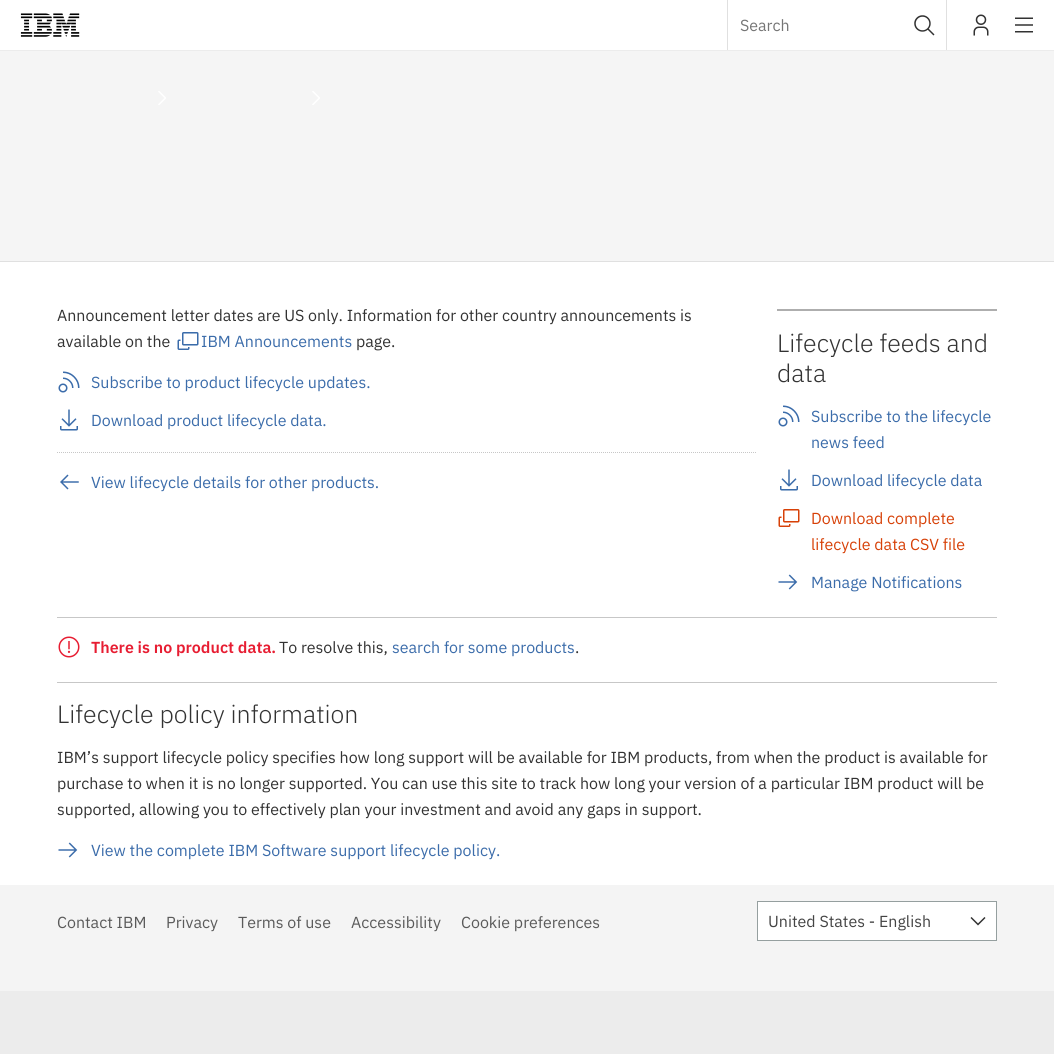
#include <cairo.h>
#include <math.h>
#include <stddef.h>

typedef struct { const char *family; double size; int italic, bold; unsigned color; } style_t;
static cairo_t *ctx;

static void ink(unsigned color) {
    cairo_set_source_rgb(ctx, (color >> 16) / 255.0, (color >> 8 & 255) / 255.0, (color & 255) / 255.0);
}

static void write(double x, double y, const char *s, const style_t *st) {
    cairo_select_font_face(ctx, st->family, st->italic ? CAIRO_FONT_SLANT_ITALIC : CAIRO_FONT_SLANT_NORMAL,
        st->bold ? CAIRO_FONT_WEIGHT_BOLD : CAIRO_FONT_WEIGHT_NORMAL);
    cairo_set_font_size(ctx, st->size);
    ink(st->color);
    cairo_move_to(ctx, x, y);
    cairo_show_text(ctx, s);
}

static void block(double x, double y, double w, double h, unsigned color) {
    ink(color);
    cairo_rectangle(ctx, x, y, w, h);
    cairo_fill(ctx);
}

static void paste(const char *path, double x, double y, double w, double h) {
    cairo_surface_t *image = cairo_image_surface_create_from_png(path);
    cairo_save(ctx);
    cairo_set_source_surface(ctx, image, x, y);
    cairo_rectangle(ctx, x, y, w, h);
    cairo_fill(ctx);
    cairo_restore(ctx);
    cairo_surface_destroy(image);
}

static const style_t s1 = {"IBM Plex Sans", 16, 0, 0, 0x757575};
static const style_t s2 = {"IBM Plex Sans", 16, 0, 0, 0x323232};
static const style_t s3 = {"IBM Plex Sans", 16, 0, 0, 0x3b6caa};
static const style_t s4 = {"IBM Plex Sans Light", 25, 0, 0, 0x323232};
static const style_t s5 = {"IBM Plex Sans", 16, 0, 0, 0xd74108};
static const style_t s6 = {"IBM Plex Sans SemiBold", 16, 0, 0, 0xe71d32};
static const style_t s7 = {"IBM Plex Sans", 16, 0, 0, 0x5a5a5a};
static const style_t s8 = {"IBM Plex Sans", 16, 0, 0, 0x444444};

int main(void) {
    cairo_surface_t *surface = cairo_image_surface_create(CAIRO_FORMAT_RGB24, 1054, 1054);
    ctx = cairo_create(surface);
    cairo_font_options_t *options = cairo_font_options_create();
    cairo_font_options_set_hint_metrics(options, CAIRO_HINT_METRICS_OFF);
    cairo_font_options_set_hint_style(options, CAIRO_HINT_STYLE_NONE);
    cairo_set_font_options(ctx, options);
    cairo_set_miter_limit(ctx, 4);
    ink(0xececec);
    cairo_paint(ctx);
    block(0, 0, 1054, 885, 0xffffff);
    block(0, 50, 1054, 1, 0xececec);
    paste("pic1.png", 20, 13, 60, 24);
    block(946, 0, 1, 50, 0xe0e0e0);
    block(727, 0, 1, 50, 0xe0e0e0);
    write(740, 31, "Search", &s1);
    paste("pic2.png", 914, 15, 21, 21);
    paste("pic3.png", 973, 14, 16, 22);
    paste("pic4.png", 1015, 17, 18, 16);
    block(0, 51, 1054, 210, 0xf5f5f5);
    block(0, 261, 1054, 1, 0xe0e0e0);
    paste("pic5.png", 158, 91, 8, 14);
    paste("pic5.png", 312, 91, 8, 14);
    write(57, 321, "Announcement letter dates are US only. Information for other country announcements is", &s2);
    write(57, 347, "available on the", &s2);
    paste("pic6.png", 177, 332, 22, 18);
    write(201, 347, "IBM Announcements", &s3);
    write(356, 347, "page.", &s2);
    paste("pic7.png", 58, 371, 22, 22);
    write(91, 388, "Subscribe to product lifecycle updates.", &s3);
    paste("pic8.png", 60, 409, 18, 22);
    write(91, 426, "Download product lifecycle data.", &s3);
    cairo_new_path(ctx);
    cairo_move_to(ctx, 57, 452.5);
    cairo_line_to(ctx, 757, 452.5);
    ink(0xc7c7c7);
    cairo_set_line_width(ctx, 1);
    cairo_set_dash(ctx, (double[]){1, 1}, 2, 0);
    cairo_stroke(ctx);
    paste("pic9.png", 60, 474, 19, 16);
    write(91, 488, "View lifecycle details for other products.", &s3);
    block(777, 309, 220, 2, 0xaeaeae);
    write(777, 352, "Lifecycle feeds and", &s4);
    write(777, 382, "data", &s4);
    paste("pic7.png", 778, 405, 22, 22);
    write(811, 422, "Subscribe to the lifecycle", &s3);
    write(811, 448, "news feed", &s3);
    paste("pic8.png", 780, 469, 18, 22);
    write(811, 486, "Download lifecycle data", &s3);
    paste("pic10.png", 778, 509, 22, 18);
    write(811, 524, "Download complete", &s5);
    write(811, 550, "lifecycle data CSV file", &s5);
    paste("pic11.png", 778, 574, 20, 16);
    write(811, 588, "Manage Notifications", &s3);
    block(57, 617, 940, 1, 0xc7c7c7);
    paste("pic12.png", 58, 636, 22, 22);
    write(91, 653, "There is no product data.", &s6);
    write(279, 653, "To resolve this,", &s2);
    write(392, 653, "search for some products", &s3);
    write(575, 653, ".", &s2);
    block(57, 682, 940, 1, 0xc7c7c7);
    write(57, 723, "Lifecycle policy information", &s4);
    write(57, 763, "IBM’s support lifecycle policy specifies how long support will be available for IBM products, from when the product is available for", &s2);
    write(57, 789, "purchase to when it is no longer supported. You can use this site to track how long your version of a particular IBM product will be", &s2);
    write(57, 815, "supported, allowing you to effectively plan your investment and avoid any gaps in support.", &s2);
    paste("pic11.png", 58, 842, 20, 16);
    write(91, 856, "View the complete IBM Software support lifecycle policy.", &s3);
    block(0, 885, 1054, 106, 0xf4f4f4);
    write(57, 928, "Contact IBM", &s7);
    write(166, 928, "Privacy", &s7);
    write(238, 928, "Terms of use", &s7);
    write(351, 928, "Accessibility", &s7);
    write(461, 928, "Cookie preferences", &s7);
    ink(0xffffff);
    cairo_rectangle(ctx, 757.5, 901.5, 239, 39);
    cairo_fill_preserve(ctx);
    ink(0x959f9f);
    cairo_set_dash(ctx, NULL, 0, 0);
    cairo_stroke(ctx);
    write(768, 927, "United States - English", &s8);
    paste("pic13.png", 970, 917, 16, 9);
    cairo_surface_write_to_png(surface, "screenshot.png");
    cairo_font_options_destroy(options);
    cairo_destroy(ctx);
    cairo_surface_destroy(surface);
    return 0;
}
